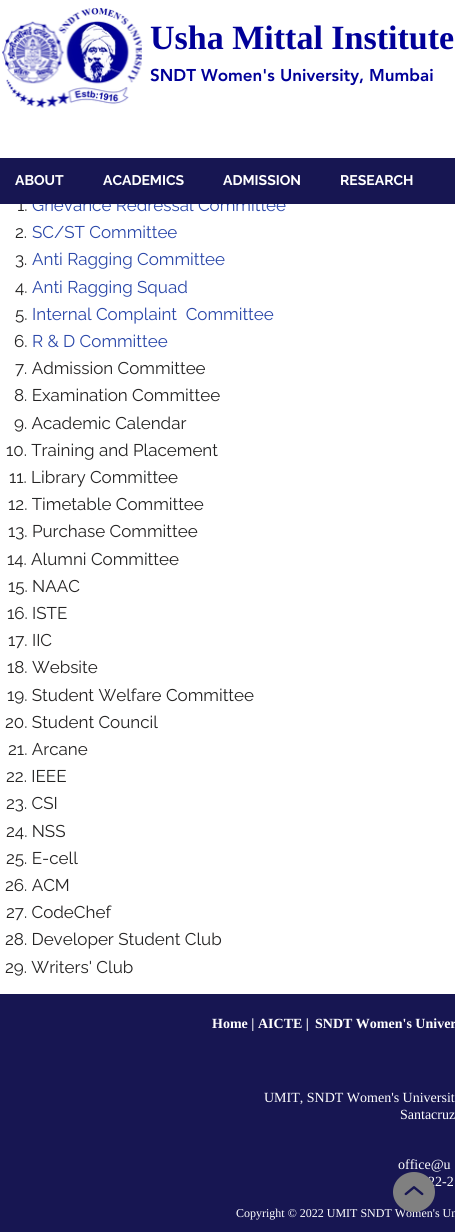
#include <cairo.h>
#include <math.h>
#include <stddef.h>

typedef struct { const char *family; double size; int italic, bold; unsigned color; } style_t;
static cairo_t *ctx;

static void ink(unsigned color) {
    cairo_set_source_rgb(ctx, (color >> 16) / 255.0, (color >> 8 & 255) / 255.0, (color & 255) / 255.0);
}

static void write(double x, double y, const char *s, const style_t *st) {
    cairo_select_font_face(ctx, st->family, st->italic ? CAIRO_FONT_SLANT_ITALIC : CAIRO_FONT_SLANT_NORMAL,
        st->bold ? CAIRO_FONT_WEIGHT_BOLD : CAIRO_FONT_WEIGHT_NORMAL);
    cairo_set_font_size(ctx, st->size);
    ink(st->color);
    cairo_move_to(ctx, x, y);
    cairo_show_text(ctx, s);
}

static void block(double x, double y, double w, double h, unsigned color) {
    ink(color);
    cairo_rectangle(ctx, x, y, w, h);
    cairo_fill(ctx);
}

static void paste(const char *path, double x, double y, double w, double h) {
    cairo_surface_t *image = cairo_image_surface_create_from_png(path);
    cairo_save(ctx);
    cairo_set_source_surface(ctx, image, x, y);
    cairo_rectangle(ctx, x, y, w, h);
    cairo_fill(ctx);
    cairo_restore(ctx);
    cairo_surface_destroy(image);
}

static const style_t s1 = {"Liberation Serif", 34, 0, 1, 0x000099};
static const style_t s2 = {"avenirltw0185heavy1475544 Black", 17, 0, 0, 0x000099};
static const style_t s3 = {"Raleway", 17, 0, 0, 0x242323};
static const style_t s4 = {"Raleway", 17, 0, 0, 0x2a47a9};
static const style_t s5 = {"Raleway", 14, 0, 1, 0xffffff};
static const style_t s6 = {"Liberation Serif", 14, 0, 1, 0xffffff};
static const style_t s7 = {"Liberation Serif", 14, 0, 0, 0xffffff};
static const style_t s8 = {"Liberation Serif", 12, 0, 0, 0xffffff};

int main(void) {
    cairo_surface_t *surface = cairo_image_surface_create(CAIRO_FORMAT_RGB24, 455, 1232);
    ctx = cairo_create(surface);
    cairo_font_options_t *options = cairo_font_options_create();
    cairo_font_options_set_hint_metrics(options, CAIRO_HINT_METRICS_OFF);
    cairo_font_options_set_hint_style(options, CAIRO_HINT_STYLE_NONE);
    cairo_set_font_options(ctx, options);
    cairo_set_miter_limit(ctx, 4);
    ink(0xffffff);
    cairo_paint(ctx);
    paste("pic1.png", 2, 8, 140, 100);
    write(150, 49, "Usha Mittal Institute", &s1);
    write(150, 81, "SNDT Women's University, Mumbai", &s2);
    write(17, 211, "1.", &s3);
    write(32, 211, "Grievance Redressal Committee", &s4);
    block(0, 158, 455, 46, 0x171652);
    write(15, 185, "ABOUT", &s5);
    write(103, 185, "ACADEMICS", &s5);
    write(223, 185, "ADMISSION", &s5);
    write(340, 185, "RESEARCH", &s5);
    write(15, 238, "2.", &s3);
    write(32, 238, "SC/ST Committee", &s4);
    write(15, 265, "3.", &s3);
    write(32, 265, "Anti Ragging Committee", &s4);
    write(15, 293, "4.", &s3);
    write(32, 293, "Anti Ragging Squad", &s4);
    write(15, 320, "5.", &s3);
    write(32, 320, "Internal Complaint  Committee", &s4);
    write(14, 347, "6.", &s3);
    write(32, 347, "R & D Committee", &s4);
    write(15, 374, "7. Admission Committee", &s3);
    write(14, 401, "8. Examination Committee", &s3);
    write(14, 429, "9. Academic Calendar", &s3);
    write(6, 456, "10. Training and Placement", &s3);
    write(9, 483, "11. Library Committee", &s3);
    write(8, 510, "12. Timetable Committee", &s3);
    write(8, 537, "13. Purchase Committee", &s3);
    write(7, 565, "14. Alumni Committee", &s3);
    write(8, 592, "15. NAAC", &s3);
    write(7, 619, "16. ISTE", &s3);
    write(8, 646, "17. IIC", &s3);
    write(7, 673, "18. Website", &s3);
    write(7, 701, "19. Student Welfare Committee", &s3);
    write(5, 728, "20. Student Council", &s3);
    write(8, 755, "21. Arcane", &s3);
    write(6, 782, "22. IEEE", &s3);
    write(6, 809, "23. CSI", &s3);
    write(6, 837, "24. NSS", &s3);
    write(6, 864, "25. E-cell", &s3);
    write(5, 891, "26. ACM", &s3);
    write(6, 918, "27. CodeChef", &s3);
    write(5, 945, "28. Developer Student Club", &s3);
    write(5, 973, "29. Writers' Club", &s3);
    block(0, 994, 455, 238, 0x171652);
    write(212, 1028, "Home |", &s6);
    write(258, 1028, "AICTE |", &s6);
    write(315, 1028, "SNDT Women's Univer", &s6);
    write(264, 1102, "UMIT, SNDT Women's Universit", &s7);
    write(400, 1119, "Santacruz", &s7);
    write(398, 1169, "office@u", &s7);
    write(428, 1186, "22-2", &s7);
    write(236, 1217, "Copyright © 2022 UMIT SNDT Women's Un", &s8);
    paste("pic2.png", 393, 1172, 42, 40);
    cairo_surface_write_to_png(surface, "screenshot.png");
    cairo_font_options_destroy(options);
    cairo_destroy(ctx);
    cairo_surface_destroy(surface);
    return 0;
}
